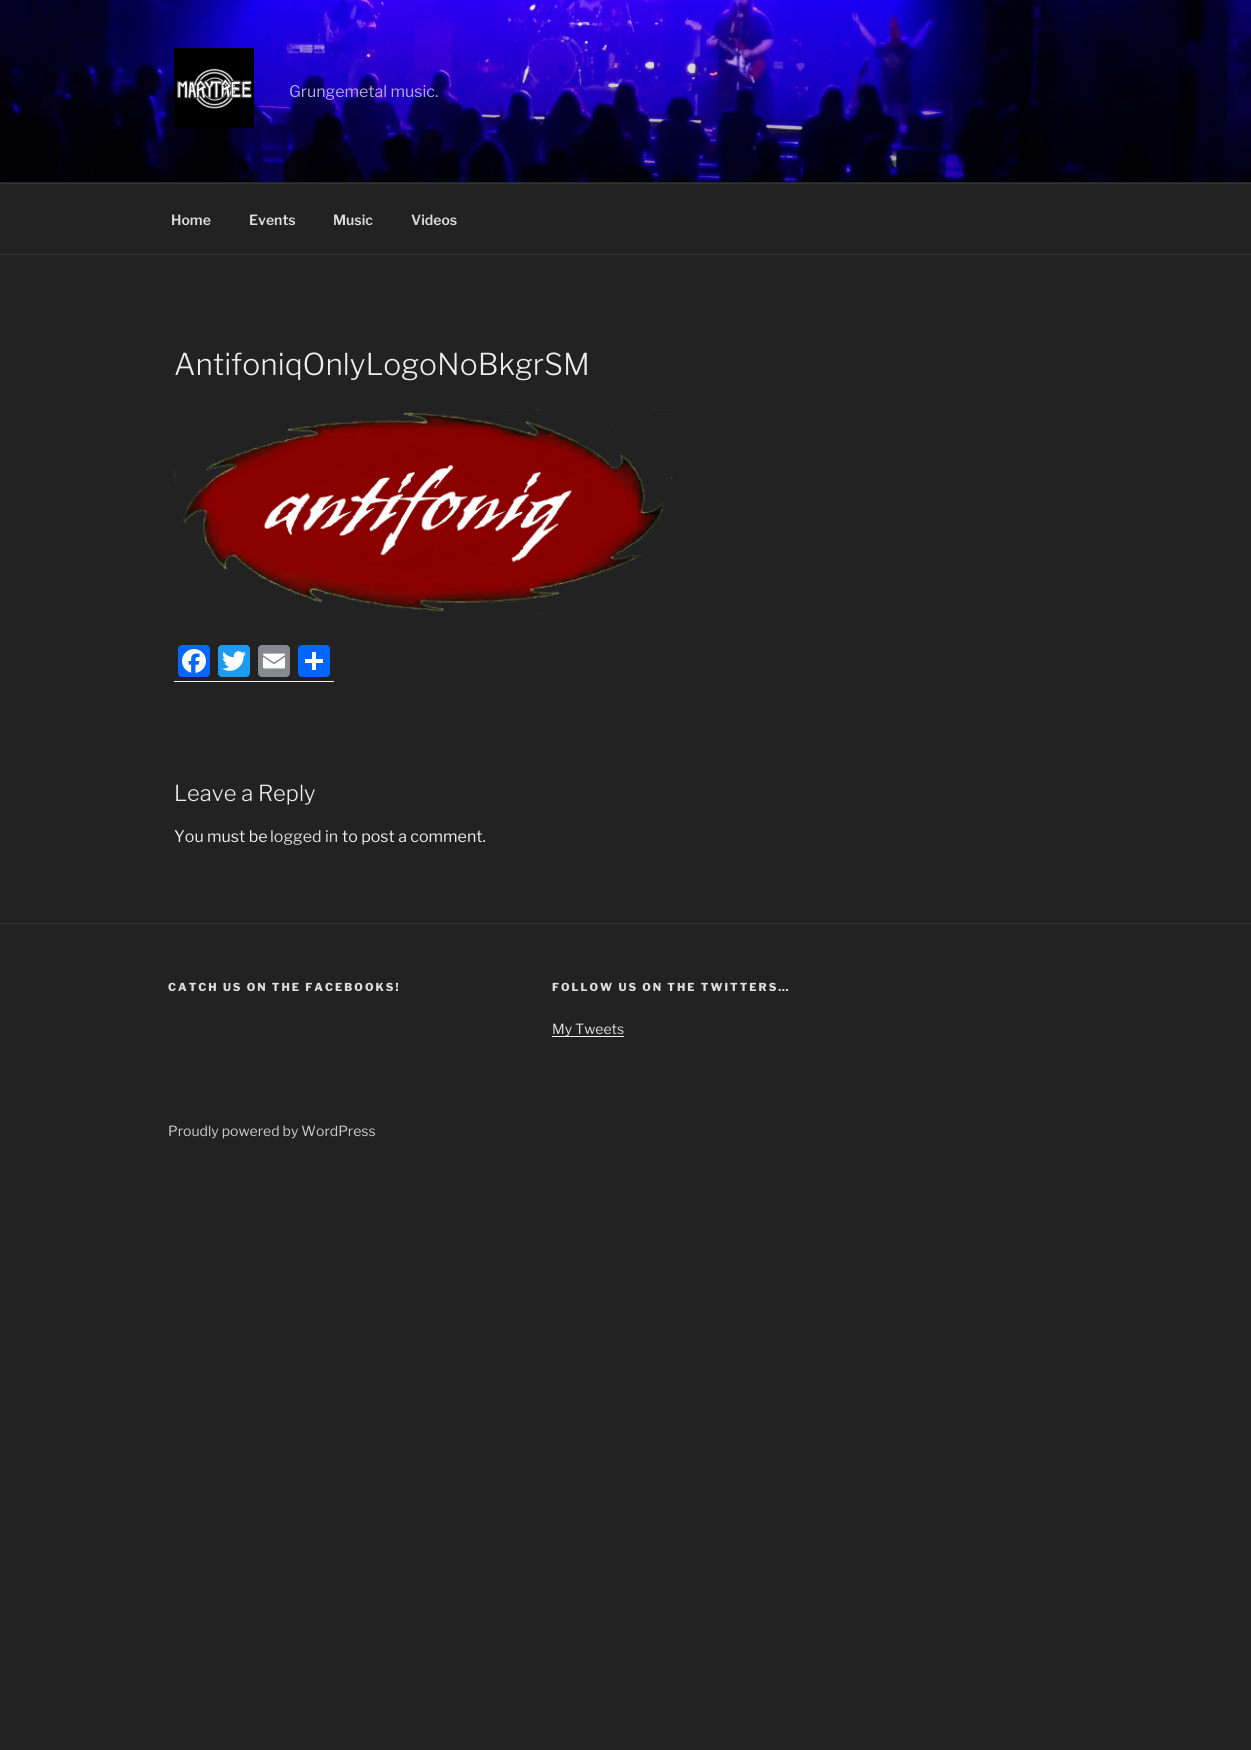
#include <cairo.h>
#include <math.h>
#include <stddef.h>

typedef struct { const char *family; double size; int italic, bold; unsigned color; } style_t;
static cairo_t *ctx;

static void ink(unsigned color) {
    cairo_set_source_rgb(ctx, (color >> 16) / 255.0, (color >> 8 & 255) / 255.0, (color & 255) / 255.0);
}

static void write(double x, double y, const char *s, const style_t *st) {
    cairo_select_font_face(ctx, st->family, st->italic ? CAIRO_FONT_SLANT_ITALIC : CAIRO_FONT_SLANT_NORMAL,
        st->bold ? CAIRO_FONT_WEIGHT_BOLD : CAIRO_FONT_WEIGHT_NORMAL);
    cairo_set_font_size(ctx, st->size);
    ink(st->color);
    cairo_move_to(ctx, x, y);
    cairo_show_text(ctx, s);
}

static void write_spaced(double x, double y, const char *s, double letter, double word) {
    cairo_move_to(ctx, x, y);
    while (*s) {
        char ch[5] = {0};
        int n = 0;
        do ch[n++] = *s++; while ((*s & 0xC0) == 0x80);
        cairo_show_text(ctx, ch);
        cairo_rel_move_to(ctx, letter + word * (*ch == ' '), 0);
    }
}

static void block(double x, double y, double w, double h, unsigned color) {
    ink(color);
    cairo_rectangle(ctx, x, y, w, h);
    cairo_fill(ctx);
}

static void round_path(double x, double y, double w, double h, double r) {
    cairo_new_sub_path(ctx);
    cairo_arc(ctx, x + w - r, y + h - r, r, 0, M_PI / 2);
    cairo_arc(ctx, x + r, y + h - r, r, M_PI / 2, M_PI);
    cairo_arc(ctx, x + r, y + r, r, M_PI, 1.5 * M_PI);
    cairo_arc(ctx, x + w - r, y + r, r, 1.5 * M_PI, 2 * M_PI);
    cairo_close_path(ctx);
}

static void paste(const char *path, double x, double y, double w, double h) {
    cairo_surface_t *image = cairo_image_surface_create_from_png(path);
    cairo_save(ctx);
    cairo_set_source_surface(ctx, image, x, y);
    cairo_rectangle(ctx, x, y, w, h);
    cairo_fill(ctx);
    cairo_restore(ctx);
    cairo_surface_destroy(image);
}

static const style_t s1 = {"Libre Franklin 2 Thin", 16, 0, 0, 0xb2adcd};
static const style_t s2 = {"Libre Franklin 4 Thin", 14, 0, 0, 0xdddddd};
static const style_t s3 = {"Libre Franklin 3 Thin", 30, 0, 0, 0xeeeeee};
static const style_t s4 = {"Libre Franklin 3 Thin", 22, 0, 0, 0xeeeeee};
static const style_t s5 = {"Libre Franklin 2 Thin", 16, 0, 0, 0xeeeeee};
static const style_t s6 = {"Libre Franklin 2 Thin", 16, 0, 0, 0xdddddd};
static const style_t s7 = {"Libre Franklin 2 Thin", 14, 0, 0, 0xdddddd};
static const style_t s8 = {"Libre Franklin 2 Thin", 14, 0, 0, 0xcccccc};

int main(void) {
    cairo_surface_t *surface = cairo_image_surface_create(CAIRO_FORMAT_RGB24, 1251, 1750);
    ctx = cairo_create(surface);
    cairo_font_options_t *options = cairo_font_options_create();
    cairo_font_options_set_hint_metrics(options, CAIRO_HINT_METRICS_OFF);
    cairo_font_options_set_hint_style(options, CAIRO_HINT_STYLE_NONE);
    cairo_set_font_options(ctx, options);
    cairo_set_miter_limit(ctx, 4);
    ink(0x222222);
    cairo_paint(ctx);
    block(0, 182, 1251, 1, 0x262626);
    paste("pic1.png", 0, 0, 1251, 182);
    paste("pic2.png", 174, 48, 80, 80);
    write(289, 97, "Grungemetal music.", &s1);
    block(0, 183, 1251, 1, 0x333333);
    block(0, 254, 1251, 1, 0x333333);
    write(171, 225, "Home", &s2);
    write(249, 225, "Events", &s2);
    write(333, 225, "Music", &s2);
    write(411, 225, "Videos", &s2);
    write(174, 375, "AntifoniqOnlyLogoNoBkgrSM", &s3);
    paste("pic3.png", 174, 409, 500, 205);
    block(174, 681, 160, 1, 0xf0f0f0);
    ink(0x0866ff);
    round_path(178, 645, 32, 32, 4);
    cairo_fill(ctx);
    paste("pic4.png", 182, 649, 24, 24);
    ink(0x1d9bf0);
    round_path(218, 645, 32, 32, 4);
    cairo_fill(ctx);
    paste("pic5.png", 222, 651, 24, 20);
    ink(0x888990);
    round_path(258, 645, 32, 32, 4);
    cairo_fill(ctx);
    paste("pic6.png", 263, 653, 22, 16);
    ink(0x0166ff);
    round_path(298, 645, 32, 32, 4);
    cairo_fill(ctx);
    block(312, 652, 4, 18, 0xffffff);
    block(305, 659, 18, 4, 0xffffff);
    write(174, 801, "Leave a Reply", &s4);
    write(174, 842, "You must be", &s5);
    write(270, 842, "logged in", &s6);
    write(342, 842, "to post a comment.", &s5);
    block(0, 923, 1251, 1, 0x333333);
    cairo_select_font_face(ctx, "Libre Franklin Thin", CAIRO_FONT_SLANT_NORMAL, CAIRO_FONT_WEIGHT_NORMAL);
    cairo_set_font_size(ctx, 11);
    ink(0xdddddd);
    write_spaced(168, 991, "CATCH US ON THE FACEBOOKS!", 2, 0);
    write_spaced(552, 991, "FOLLOW US ON THE TWITTERS…", 2, 0);
    block(552, 1036, 72, 1, 0xf0f0f0);
    write(552, 1034, "My Tweets", &s7);
    write(168, 1136, "Proudly powered by WordPress", &s8);
    cairo_surface_write_to_png(surface, "screenshot.png");
    cairo_font_options_destroy(options);
    cairo_destroy(ctx);
    cairo_surface_destroy(surface);
    return 0;
}
